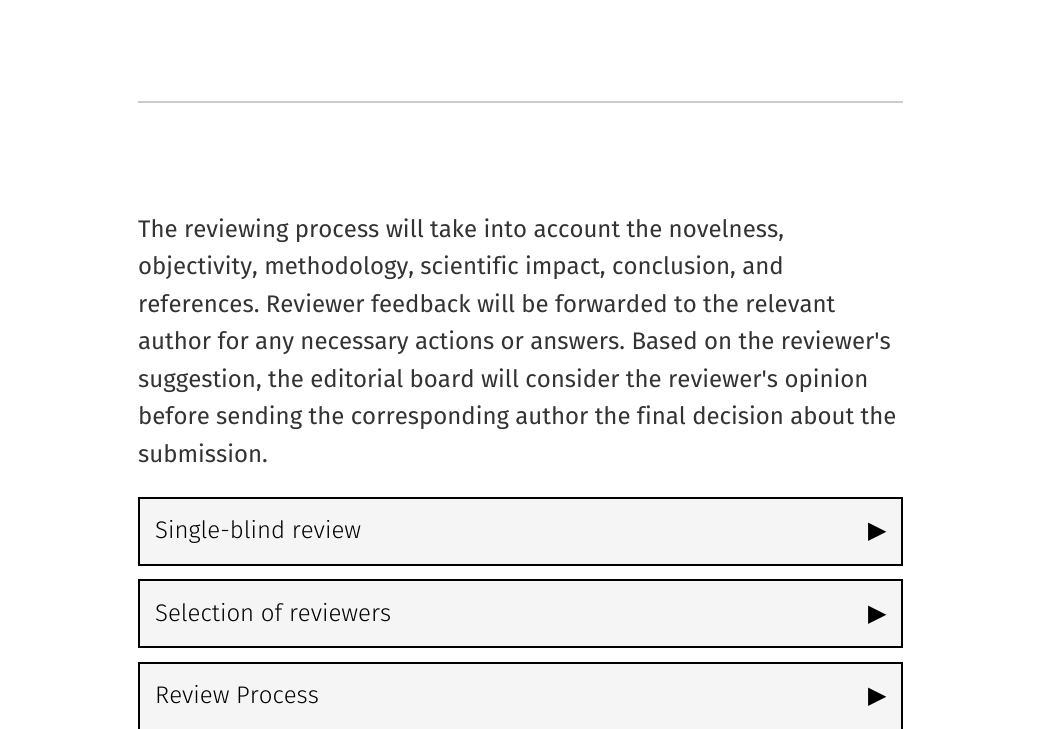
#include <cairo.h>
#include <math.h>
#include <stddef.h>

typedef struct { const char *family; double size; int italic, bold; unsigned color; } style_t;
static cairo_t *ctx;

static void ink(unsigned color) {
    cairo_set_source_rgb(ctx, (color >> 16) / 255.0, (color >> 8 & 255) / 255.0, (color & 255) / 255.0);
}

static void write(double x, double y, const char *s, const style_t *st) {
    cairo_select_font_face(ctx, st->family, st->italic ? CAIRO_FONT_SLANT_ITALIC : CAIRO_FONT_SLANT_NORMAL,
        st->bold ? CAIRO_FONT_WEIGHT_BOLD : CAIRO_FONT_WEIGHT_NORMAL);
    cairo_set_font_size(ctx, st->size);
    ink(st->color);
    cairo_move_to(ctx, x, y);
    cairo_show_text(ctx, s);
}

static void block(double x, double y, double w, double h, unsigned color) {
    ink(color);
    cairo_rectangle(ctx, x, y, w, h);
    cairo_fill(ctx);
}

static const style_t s1 = {"Fira Sans", 24, 0, 0, 0x333333};
static const style_t s2 = {"Fira Sans Light", 24, 0, 0, 0x000000};
static const style_t s3 = {"DejaVu Sans", 24, 0, 0, 0x000000};

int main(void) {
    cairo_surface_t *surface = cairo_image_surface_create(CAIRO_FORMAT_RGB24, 1041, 729);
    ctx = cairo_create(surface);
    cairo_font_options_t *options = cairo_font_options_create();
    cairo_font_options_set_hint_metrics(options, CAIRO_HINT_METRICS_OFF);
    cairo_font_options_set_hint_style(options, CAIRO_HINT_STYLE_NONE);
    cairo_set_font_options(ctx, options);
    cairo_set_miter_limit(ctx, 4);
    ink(0xffffff);
    cairo_paint(ctx);
    block(138, 101, 765, 2, 0xcccccc);
    write(138, 237, "The reviewing process will take into account the novelness,", &s1);
    write(138, 274, "objectivity, methodology, scientific impact, conclusion, and", &s1);
    write(138, 312, "references. Reviewer feedback will be forwarded to the relevant", &s1);
    write(138, 349, "author for any necessary actions or answers. Based on the reviewer's", &s1);
    write(138, 387, "suggestion, the editorial board will consider the reviewer's opinion", &s1);
    write(138, 424, "before sending the corresponding author the final decision about the", &s1);
    write(138, 462, "submission.", &s1);
    ink(0xf5f5f5);
    cairo_rectangle(ctx, 139, 498, 763, 67);
    cairo_fill_preserve(ctx);
    ink(0x000000);
    cairo_stroke(ctx);
    write(155, 538, "Single-blind review", &s2);
    write(868, 538, "▶", &s3);
    ink(0xf5f5f5);
    cairo_rectangle(ctx, 139, 580, 763, 67);
    cairo_fill_preserve(ctx);
    ink(0x000000);
    cairo_stroke(ctx);
    write(155, 621, "Selection of reviewers", &s2);
    write(868, 621, "▶", &s3);
    ink(0xf5f5f5);
    cairo_rectangle(ctx, 139, 663, 763, 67);
    cairo_fill_preserve(ctx);
    ink(0x000000);
    cairo_stroke(ctx);
    write(155, 703, "Review Process", &s2);
    write(868, 703, "▶", &s3);
    cairo_surface_write_to_png(surface, "screenshot.png");
    cairo_font_options_destroy(options);
    cairo_destroy(ctx);
    cairo_surface_destroy(surface);
    return 0;
}
